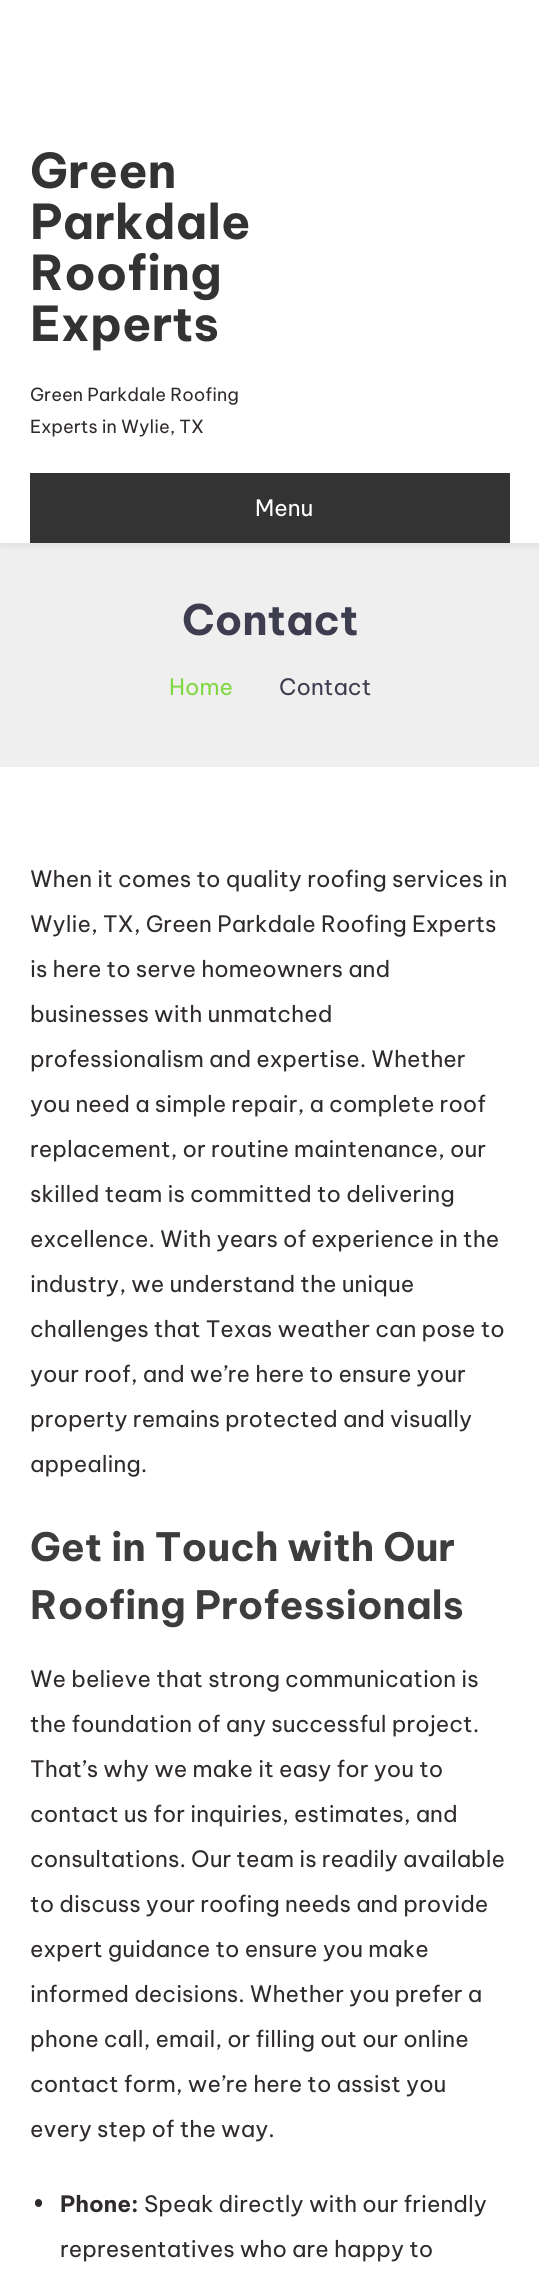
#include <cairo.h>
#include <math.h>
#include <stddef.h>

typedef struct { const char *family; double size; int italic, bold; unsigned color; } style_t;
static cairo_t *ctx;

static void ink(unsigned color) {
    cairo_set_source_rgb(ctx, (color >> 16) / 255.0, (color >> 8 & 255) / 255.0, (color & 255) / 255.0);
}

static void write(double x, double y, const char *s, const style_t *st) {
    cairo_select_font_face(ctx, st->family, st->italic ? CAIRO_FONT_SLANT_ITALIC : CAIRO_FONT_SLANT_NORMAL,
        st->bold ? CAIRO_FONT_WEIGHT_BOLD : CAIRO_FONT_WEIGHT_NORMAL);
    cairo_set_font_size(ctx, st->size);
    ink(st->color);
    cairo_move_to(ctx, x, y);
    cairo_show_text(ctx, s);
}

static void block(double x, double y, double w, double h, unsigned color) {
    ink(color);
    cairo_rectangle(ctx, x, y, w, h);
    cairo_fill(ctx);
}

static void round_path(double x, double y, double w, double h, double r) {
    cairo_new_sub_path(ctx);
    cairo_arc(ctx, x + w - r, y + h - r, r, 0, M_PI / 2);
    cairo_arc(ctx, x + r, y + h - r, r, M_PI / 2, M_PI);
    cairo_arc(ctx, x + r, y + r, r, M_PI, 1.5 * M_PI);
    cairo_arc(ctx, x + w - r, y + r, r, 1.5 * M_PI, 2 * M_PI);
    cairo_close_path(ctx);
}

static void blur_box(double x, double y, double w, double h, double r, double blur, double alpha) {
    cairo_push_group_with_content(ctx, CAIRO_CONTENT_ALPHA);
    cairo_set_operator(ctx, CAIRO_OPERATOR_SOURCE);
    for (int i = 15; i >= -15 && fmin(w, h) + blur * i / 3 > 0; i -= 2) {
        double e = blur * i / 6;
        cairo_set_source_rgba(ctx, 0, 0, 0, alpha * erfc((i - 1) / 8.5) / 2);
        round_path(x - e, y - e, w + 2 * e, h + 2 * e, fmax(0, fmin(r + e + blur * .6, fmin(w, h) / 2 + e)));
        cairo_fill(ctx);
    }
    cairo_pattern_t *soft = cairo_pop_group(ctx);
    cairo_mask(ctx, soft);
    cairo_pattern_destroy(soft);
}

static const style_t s1 = {"Be Vietnam Pro", 48, 0, 1, 0x333333};
static const style_t s2 = {"Be Vietnam Pro", 18, 0, 0, 0x302b2b};
static const style_t s3 = {"Be Vietnam Pro", 22.5, 0, 0, 0xffffff};
static const style_t s4 = {"Be Vietnam Pro", 42, 0, 1, 0x3d3d4f};
static const style_t s5 = {"Be Vietnam Pro", 22.5, 0, 0, 0x81d742};
static const style_t s6 = {"Be Vietnam Pro", 22.5, 0, 0, 0x3d3d4f};
static const style_t s7 = {"Be Vietnam Pro", 22.5, 0, 0, 0x302b2b};
static const style_t s8 = {"Be Vietnam Pro", 39, 0, 1, 0x3d3d3d};
static const style_t s9 = {"Be Vietnam Pro", 22.5, 0, 1, 0x302b2b};

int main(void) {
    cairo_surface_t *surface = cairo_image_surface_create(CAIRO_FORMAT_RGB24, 539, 2278);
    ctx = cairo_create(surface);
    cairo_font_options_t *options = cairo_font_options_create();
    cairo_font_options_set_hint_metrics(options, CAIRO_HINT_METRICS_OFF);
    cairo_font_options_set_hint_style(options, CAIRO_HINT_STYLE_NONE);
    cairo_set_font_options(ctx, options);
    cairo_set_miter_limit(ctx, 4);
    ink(0xffffff);
    cairo_paint(ctx);
    block(0, 543, 539, 224, 0xefefef);
    cairo_save(ctx);
    cairo_rectangle(ctx, 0, 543, 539, 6);
    cairo_clip(ctx);
    ink(0x000000);
    blur_box(0, 0, 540, 543, 0, 7.5, 0.1);
    cairo_restore(ctx);
    write(30, 188, "Green", &s1);
    write(30, 239, "Parkdale", &s1);
    write(30, 290, "Roofing", &s1);
    write(30, 341, "Experts", &s1);
    write(30, 401, "Green Parkdale Roofing", &s2);
    write(30, 433, "Experts in Wylie, TX", &s2);
    block(30, 473, 480, 70, 0x333333);
    write(255, 516, "Menu", &s3);
    write(182, 635, "Contact", &s4);
    write(169, 695, "Home", &s5);
    write(279, 695, "Contact", &s6);
    write(30, 887, "When it comes to quality roofing services in", &s7);
    write(30, 932, "Wylie, TX, Green Parkdale Roofing Experts", &s7);
    write(30, 977, "is here to serve homeowners and", &s7);
    write(30, 1022, "businesses with unmatched", &s7);
    write(30, 1067, "professionalism and expertise. Whether", &s7);
    write(30, 1112, "you need a simple repair, a complete roof", &s7);
    write(30, 1157, "replacement, or routine maintenance, our", &s7);
    write(30, 1202, "skilled team is committed to delivering", &s7);
    write(30, 1247, "excellence. With years of experience in the", &s7);
    write(30, 1292, "industry, we understand the unique", &s7);
    write(30, 1337, "challenges that Texas weather can pose to", &s7);
    write(30, 1382, "your roof, and we’re here to ensure your", &s7);
    write(30, 1427, "property remains protected and visually", &s7);
    write(30, 1472, "appealing.", &s7);
    write(30, 1561, "Get in Touch with Our", &s8);
    write(30, 1619, "Roofing Professionals", &s8);
    write(30, 1687, "We believe that strong communication is", &s7);
    write(30, 1732, "the foundation of any successful project.", &s7);
    write(30, 1777, "That’s why we make it easy for you to", &s7);
    write(30, 1822, "contact us for inquiries, estimates, and", &s7);
    write(30, 1867, "consultations. Our team is readily available", &s7);
    write(30, 1912, "to discuss your roofing needs and provide", &s7);
    write(30, 1957, "expert guidance to ensure you make", &s7);
    write(30, 2002, "informed decisions. Whether you prefer a", &s7);
    write(30, 2047, "phone call, email, or filling out our online", &s7);
    write(30, 2092, "contact form, we’re here to assist you", &s7);
    write(30, 2137, "every step of the way.", &s7);
    round_path(35, 2199, 7, 8, 3.5);
    cairo_fill(ctx);
    write(60, 2212, "Phone:", &s9);
    write(144, 2212, "Speak directly with our friendly", &s7);
    write(60, 2257, "representatives who are happy to", &s7);
    cairo_surface_write_to_png(surface, "screenshot.png");
    cairo_font_options_destroy(options);
    cairo_destroy(ctx);
    cairo_surface_destroy(surface);
    return 0;
}
